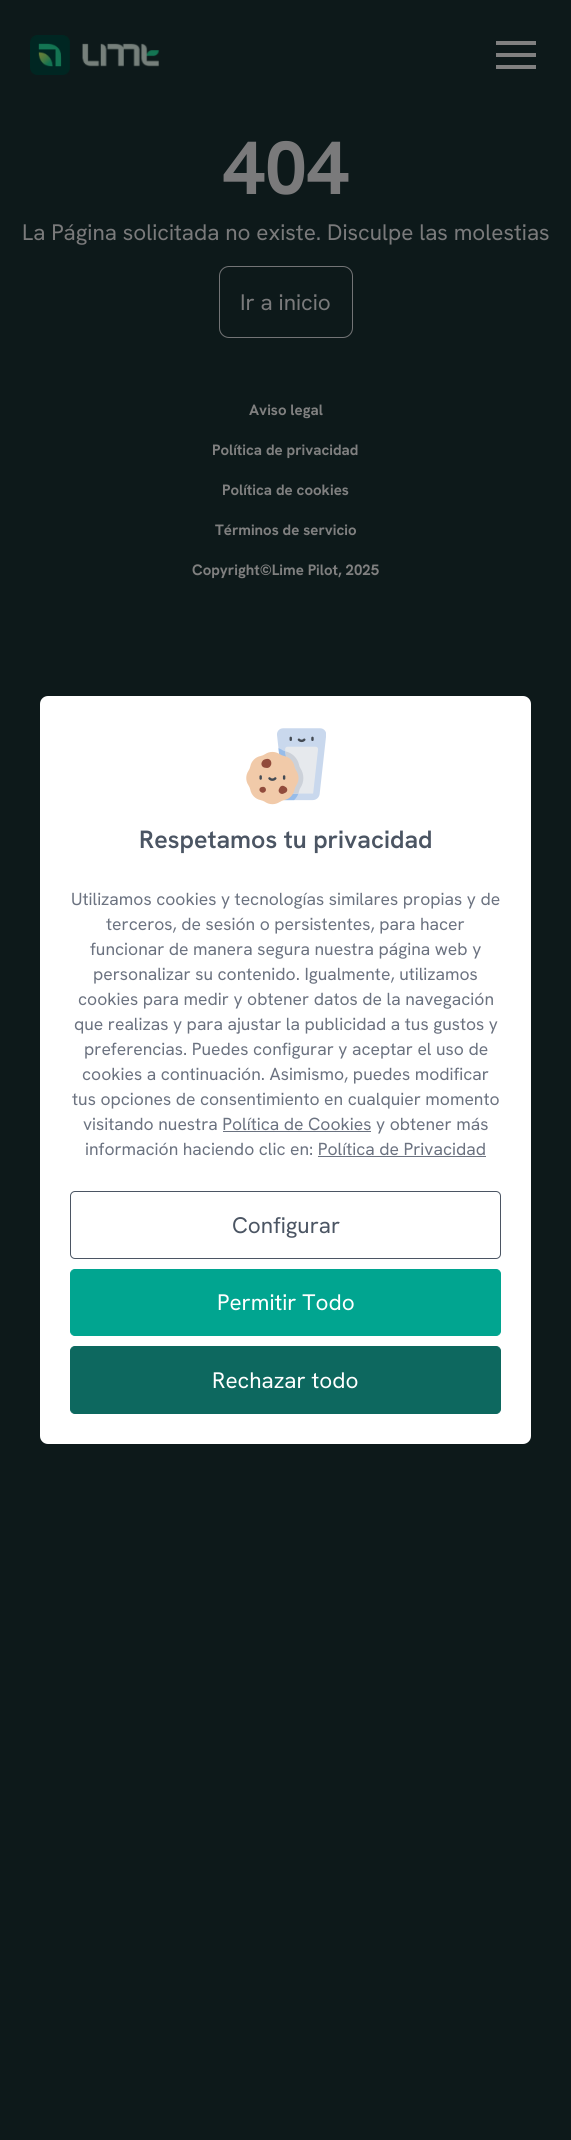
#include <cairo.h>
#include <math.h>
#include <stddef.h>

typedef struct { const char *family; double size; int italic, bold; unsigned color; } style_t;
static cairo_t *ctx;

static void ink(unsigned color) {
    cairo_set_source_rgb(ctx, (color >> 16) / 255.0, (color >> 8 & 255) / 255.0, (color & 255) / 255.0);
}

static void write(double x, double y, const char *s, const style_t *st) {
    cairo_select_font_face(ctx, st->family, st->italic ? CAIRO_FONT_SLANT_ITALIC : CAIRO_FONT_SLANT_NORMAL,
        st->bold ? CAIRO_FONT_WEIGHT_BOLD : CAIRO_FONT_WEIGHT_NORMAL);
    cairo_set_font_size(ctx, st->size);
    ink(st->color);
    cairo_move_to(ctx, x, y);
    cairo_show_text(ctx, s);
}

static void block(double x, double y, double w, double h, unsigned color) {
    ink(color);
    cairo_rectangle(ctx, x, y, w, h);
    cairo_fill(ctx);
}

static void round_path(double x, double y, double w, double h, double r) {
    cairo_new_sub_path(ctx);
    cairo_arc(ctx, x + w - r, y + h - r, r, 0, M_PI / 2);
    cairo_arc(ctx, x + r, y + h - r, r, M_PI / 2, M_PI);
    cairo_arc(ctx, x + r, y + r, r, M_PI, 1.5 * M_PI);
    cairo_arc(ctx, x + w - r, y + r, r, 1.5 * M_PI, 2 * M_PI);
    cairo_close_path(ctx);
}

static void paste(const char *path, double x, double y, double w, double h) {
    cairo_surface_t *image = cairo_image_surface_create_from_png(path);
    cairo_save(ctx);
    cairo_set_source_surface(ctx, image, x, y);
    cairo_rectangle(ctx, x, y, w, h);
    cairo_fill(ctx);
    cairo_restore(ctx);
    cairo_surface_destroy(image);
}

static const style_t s1 = {"Hanken Grotesk", 75, 0, 1, 0x7a7a7b};
static const style_t s2 = {"Hanken Grotesk", 22.5, 0, 0, 0x7a7a7b};
static const style_t s3 = {"Hanken Grotesk", 15, 0, 1, 0x808080};
static const style_t s4 = {"Hanken Grotesk SemiBold", 25, 0, 0, 0x4b5563};
static const style_t s5 = {"Hanken Grotesk", 17.5, 0, 0, 0x6b7280};
static const style_t s6 = {"Hanken Grotesk", 22.5, 0, 0, 0x4b5563};
static const style_t s7 = {"Hanken Grotesk", 22.5, 0, 0, 0xffffff};

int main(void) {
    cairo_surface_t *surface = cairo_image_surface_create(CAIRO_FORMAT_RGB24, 571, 2140);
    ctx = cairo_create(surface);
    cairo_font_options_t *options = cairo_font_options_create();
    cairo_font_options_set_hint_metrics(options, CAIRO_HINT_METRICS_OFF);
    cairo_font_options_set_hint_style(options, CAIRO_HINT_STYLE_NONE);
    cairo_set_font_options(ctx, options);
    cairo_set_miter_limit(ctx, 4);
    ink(0x0d191a);
    cairo_paint(ctx);
    paste("pic1.png", 30, 35, 130, 40);
    ink(0x808080);
    cairo_new_path(ctx);
    cairo_move_to(ctx, 496, 41);
    cairo_line_to(ctx, 536, 41);
    cairo_line_to(ctx, 536, 45);
    cairo_line_to(ctx, 496, 45);
    cairo_close_path(ctx);
    cairo_move_to(ctx, 496, 53);
    cairo_line_to(ctx, 536, 53);
    cairo_line_to(ctx, 536, 57);
    cairo_line_to(ctx, 496, 57);
    cairo_close_path(ctx);
    cairo_move_to(ctx, 496, 65);
    cairo_line_to(ctx, 536, 65);
    cairo_line_to(ctx, 536, 69);
    cairo_line_to(ctx, 496, 69);
    cairo_close_path(ctx);
    cairo_fill(ctx);
    write(223, 194, "404", &s1);
    write(22, 240, "La Página solicitada no existe. Disculpe las molestias", &s2);
    round_path(219.5, 266.5, 133, 71, 9.5);
    ink(0x737476);
    cairo_set_line_width(ctx, 1);
    cairo_stroke(ctx);
    write(240, 310, "Ir a inicio", &s2);
    write(249, 415, "Aviso legal", &s3);
    write(212, 455, "Política de privacidad", &s3);
    write(222, 495, "Política de cookies", &s3);
    write(215, 535, "Términos de servicio", &s3);
    write(192, 575, "Copyright©Lime Pilot, 2025", &s3);
    ink(0xffffff);
    round_path(40, 696, 491, 748, 8);
    cairo_fill(ctx);
    paste("pic2.png", 246, 728, 80, 77);
    write(139, 848, "Respetamos tu privacidad", &s4);
    write(71, 905, "Utilizamos cookies y tecnologías similares propias y de", &s5);
    write(106, 930, "terceros, de sesión o persistentes, para hacer", &s5);
    write(90, 955, "funcionar de manera segura nuestra página web y", &s5);
    write(93, 980, "personalizar su contenido. Igualmente, utilizamos", &s5);
    write(78, 1005, "cookies para medir y obtener datos de la navegación", &s5);
    write(74, 1030, "que realizas y para ajustar la publicidad a tus gustos y", &s5);
    write(84, 1055, "preferencias. Puedes configurar y aceptar el uso de", &s5);
    write(82, 1080, "cookies a continuación. Asimismo, puedes modificar", &s5);
    write(72, 1105, "tus opciones de consentimiento en cualquier momento", &s5);
    write(83, 1130, "visitando nuestra Política de Cookies y obtener más", &s5);
    block(223, 1131, 148, 1, 0x6b7280);
    write(85, 1155, "información haciendo clic en: Política de Privacidad", &s5);
    block(318, 1156, 168, 1, 0x6b7280);
    round_path(70.5, 1191.5, 430, 67, 4.5);
    ink(0x4b5563);
    cairo_stroke(ctx);
    write(232, 1233, "Configurar", &s6);
    ink(0x01a590);
    round_path(70.5, 1269.5, 430, 66, 4.5);
    cairo_fill_preserve(ctx);
    cairo_stroke(ctx);
    write(217, 1310, "Permitir Todo", &s7);
    ink(0x0d685f);
    round_path(70.5, 1346.5, 430, 67, 4.5);
    cairo_fill_preserve(ctx);
    cairo_stroke(ctx);
    write(212, 1388, "Rechazar todo", &s7);
    cairo_surface_write_to_png(surface, "screenshot.png");
    cairo_font_options_destroy(options);
    cairo_destroy(ctx);
    cairo_surface_destroy(surface);
    return 0;
}
